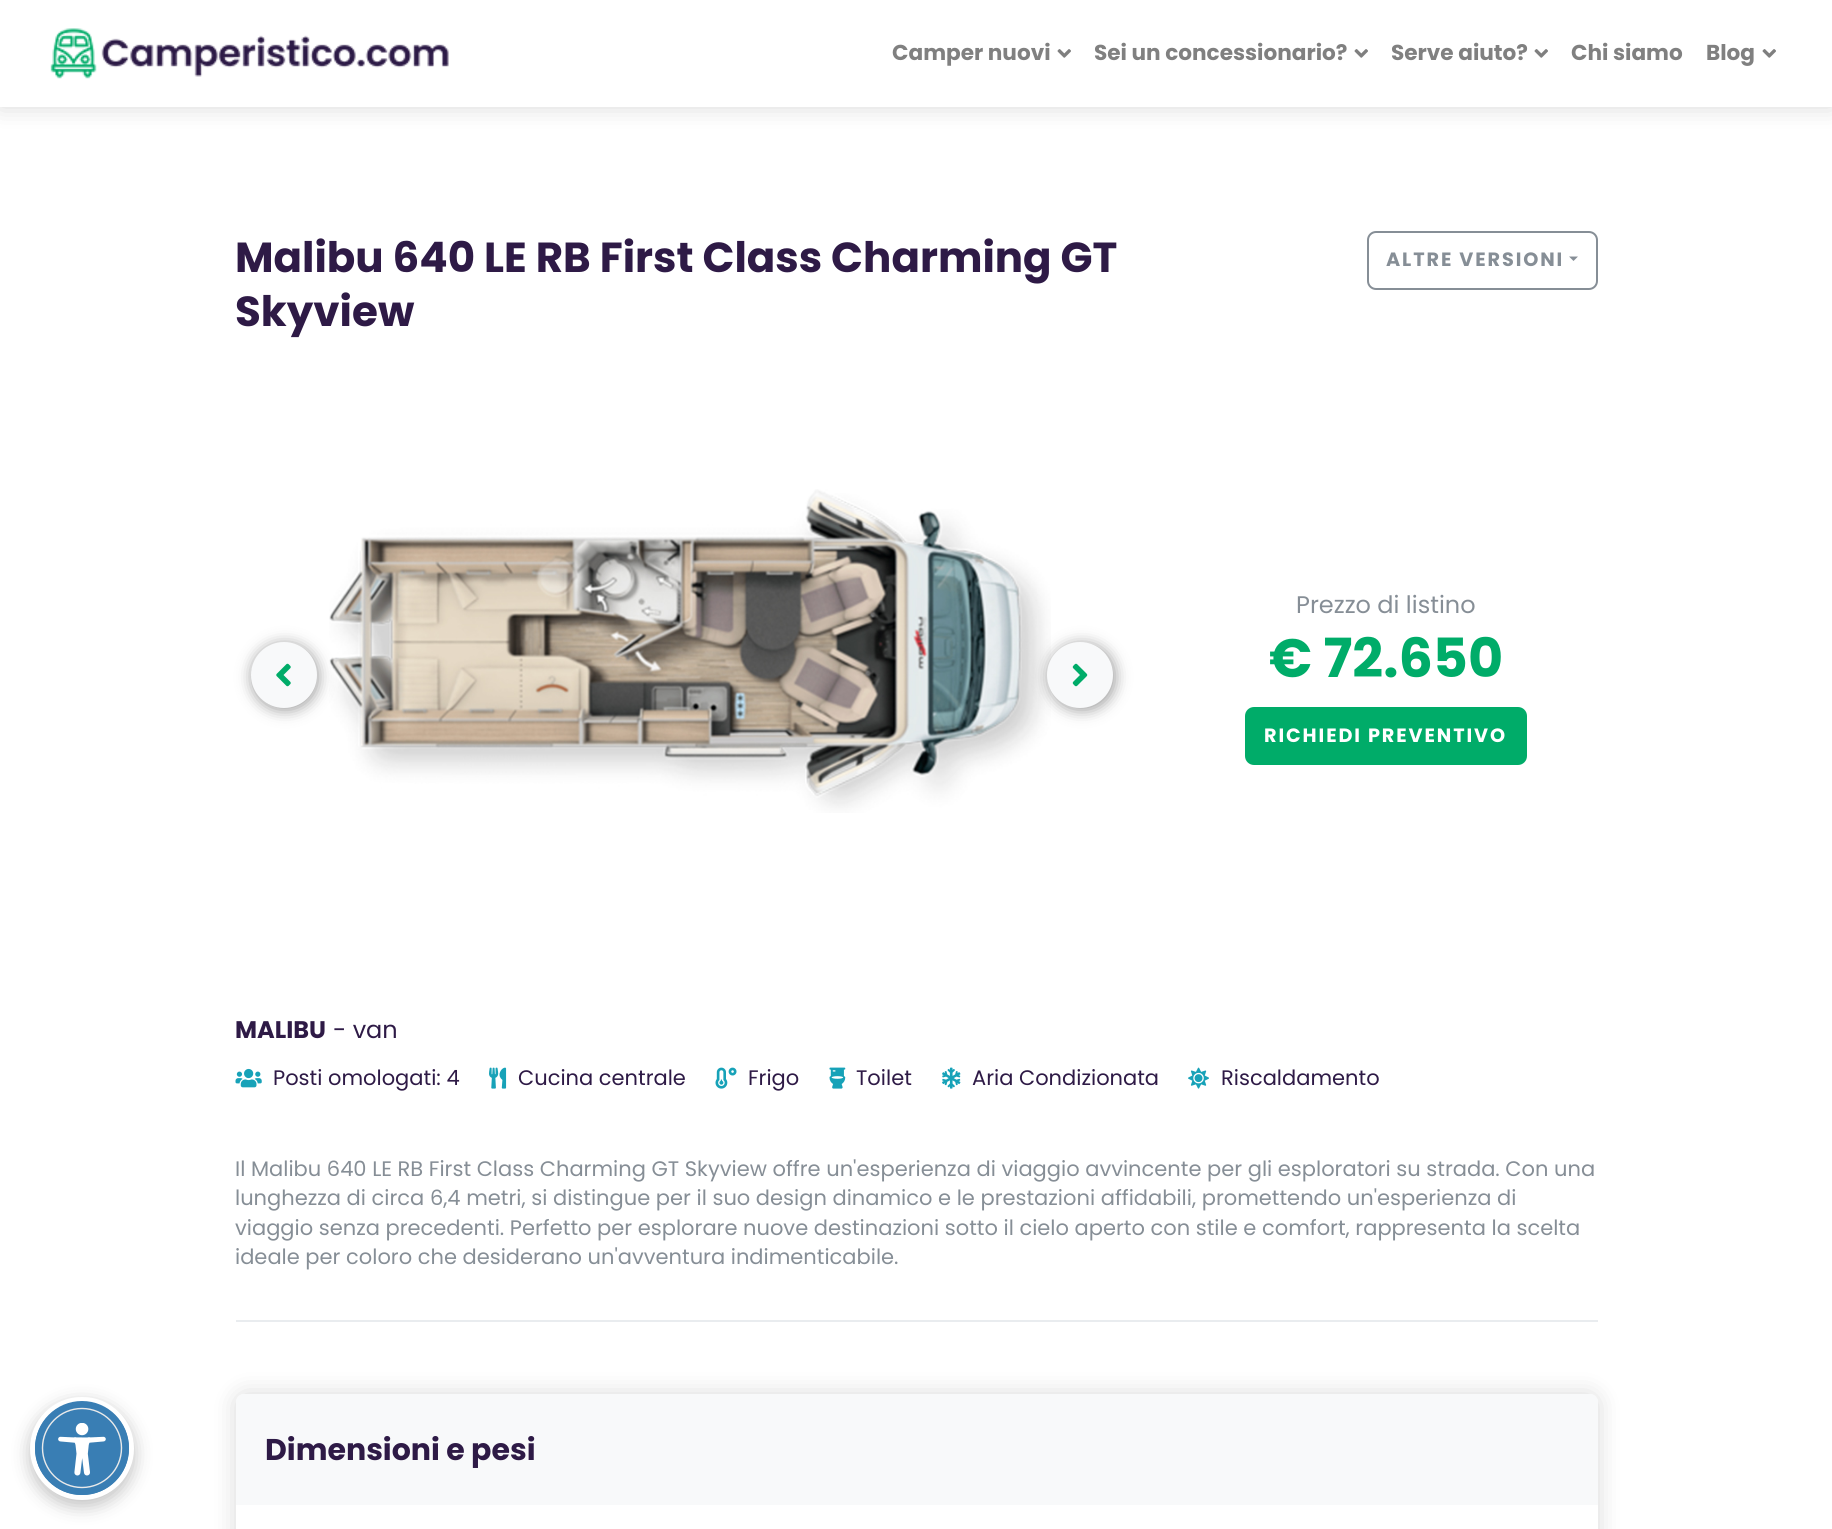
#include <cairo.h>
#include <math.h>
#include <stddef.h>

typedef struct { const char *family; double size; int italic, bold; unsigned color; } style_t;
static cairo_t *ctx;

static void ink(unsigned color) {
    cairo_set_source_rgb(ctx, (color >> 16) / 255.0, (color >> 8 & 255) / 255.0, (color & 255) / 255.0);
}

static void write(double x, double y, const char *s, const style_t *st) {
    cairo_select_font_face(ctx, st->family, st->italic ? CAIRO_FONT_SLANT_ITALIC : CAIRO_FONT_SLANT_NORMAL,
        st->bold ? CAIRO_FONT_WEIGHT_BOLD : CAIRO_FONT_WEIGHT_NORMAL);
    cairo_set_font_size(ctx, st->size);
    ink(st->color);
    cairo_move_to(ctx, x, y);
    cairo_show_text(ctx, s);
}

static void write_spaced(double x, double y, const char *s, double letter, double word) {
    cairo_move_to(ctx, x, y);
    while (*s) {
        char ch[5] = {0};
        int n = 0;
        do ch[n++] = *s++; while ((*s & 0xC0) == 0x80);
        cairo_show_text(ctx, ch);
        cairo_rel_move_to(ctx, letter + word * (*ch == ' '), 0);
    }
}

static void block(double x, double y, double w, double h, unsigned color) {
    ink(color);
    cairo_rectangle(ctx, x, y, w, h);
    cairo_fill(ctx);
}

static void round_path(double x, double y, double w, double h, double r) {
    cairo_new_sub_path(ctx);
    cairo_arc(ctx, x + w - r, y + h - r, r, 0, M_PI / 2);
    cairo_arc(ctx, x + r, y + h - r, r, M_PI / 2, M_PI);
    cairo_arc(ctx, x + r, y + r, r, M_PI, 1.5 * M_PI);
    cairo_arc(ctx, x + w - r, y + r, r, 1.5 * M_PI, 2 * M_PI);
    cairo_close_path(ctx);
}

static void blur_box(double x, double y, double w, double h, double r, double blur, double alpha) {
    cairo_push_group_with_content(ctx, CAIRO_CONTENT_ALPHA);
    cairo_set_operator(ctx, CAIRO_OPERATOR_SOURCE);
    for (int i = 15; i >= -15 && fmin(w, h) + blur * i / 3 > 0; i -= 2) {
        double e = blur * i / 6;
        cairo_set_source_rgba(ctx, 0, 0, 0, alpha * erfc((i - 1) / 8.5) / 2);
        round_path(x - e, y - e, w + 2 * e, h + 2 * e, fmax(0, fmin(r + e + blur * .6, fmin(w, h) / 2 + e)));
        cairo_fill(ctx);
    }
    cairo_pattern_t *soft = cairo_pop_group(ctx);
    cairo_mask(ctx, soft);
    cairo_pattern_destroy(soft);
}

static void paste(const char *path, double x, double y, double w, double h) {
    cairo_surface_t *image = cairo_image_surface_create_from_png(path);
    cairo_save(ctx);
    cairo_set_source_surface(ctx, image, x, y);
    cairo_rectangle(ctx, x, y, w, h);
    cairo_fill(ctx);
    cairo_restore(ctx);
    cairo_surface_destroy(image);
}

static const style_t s1 = {"Poppins", 21.6, 0, 1, 0x808080};
static const style_t s2 = {"Poppins", 42, 0, 1, 0x2e1a46};
static const style_t s3 = {"Poppins", 24, 0, 0, 0x868e96};
static const style_t s4 = {"Poppins", 54, 0, 1, 0x00ac69};
static const style_t s5 = {"Poppins", 24, 0, 1, 0x2e1a46};
static const style_t s6 = {"Poppins", 24, 0, 0, 0x2e1a46};
static const style_t s7 = {"Poppins", 21, 0, 0, 0x2e1a46};
static const style_t s8 = {"Poppins", 21, 0, 0, 0x868e96};
static const style_t s9 = {"Poppins", 30, 0, 1, 0x2e1a46};

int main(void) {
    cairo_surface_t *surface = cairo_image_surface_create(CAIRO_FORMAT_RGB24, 1832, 1529);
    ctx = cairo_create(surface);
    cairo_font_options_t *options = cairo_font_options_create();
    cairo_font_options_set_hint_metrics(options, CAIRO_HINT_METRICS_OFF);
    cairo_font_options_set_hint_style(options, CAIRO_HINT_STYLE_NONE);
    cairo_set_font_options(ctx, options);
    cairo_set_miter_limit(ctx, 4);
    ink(0xffffff);
    cairo_paint(ctx);
    ink(0x000000);
    blur_box(0, 0, 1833, 107, 0, 12, 0.15);
    block(0, 0, 1832, 107, 0xffffff);
    paste("pic1.png", 50, 28, 399, 51);
    write(892, 60, "Camper nuovi", &s1);
    paste("pic2.png", 1057, 49, 14, 9);
    write(1094, 60, "Sei un concessionario?", &s1);
    paste("pic2.png", 1354, 49, 14, 9);
    write(1391, 60, "Serve aiuto?", &s1);
    paste("pic2.png", 1534, 49, 14, 9);
    write(1571, 60, "Chi siamo", &s1);
    write(1706, 60, "Blog", &s1);
    paste("pic2.png", 1762, 49, 14, 9);
    ink(0x000000);
    blur_box(30, 1403, 104, 103, 51.5, 9, 0.25);
    ink(0x397eb4);
    round_path(32.5, 1399.5, 99, 98, 49);
    cairo_fill_preserve(ctx);
    ink(0xffffff);
    cairo_set_line_width(ctx, 5);
    cairo_stroke(ctx);
    paste("pic3.png", 35, 1401, 94, 94);
    write(235, 272, "Malibu 640 LE RB First Class Charming GT", &s2);
    write(235, 326, "Skyview", &s2);
    round_path(1368, 232, 229, 57, 8);
    ink(0x868e96);
    cairo_set_line_width(ctx, 2);
    cairo_stroke(ctx);
    cairo_set_font_size(ctx, 19.25);
    write_spaced(1386, 266, "ALTRE VERSIONI", 1.9, 0);
    cairo_new_path(ctx);
    cairo_move_to(ctx, 1569, 256.5);
    cairo_line_to(ctx, 1578, 256.5);
    cairo_line_to(ctx, 1573.5, 261);
    cairo_close_path(ctx);
    cairo_fill(ctx);
    paste("pic5.png", 329, 489, 722, 324);
    ink(0x000000);
    blur_box(252, 644, 66, 66, 33, 7.5, 0.4);
    ink(0xf8f9fa);
    cairo_arc(ctx, 284, 675, 33, 0, 2 * M_PI);
    cairo_fill(ctx);
    paste("pic4.png", 276, 663, 15, 24);
    ink(0x000000);
    blur_box(1049, 644, 66, 66, 33, 7.5, 0.4);
    ink(0xf8f9fa);
    cairo_arc(ctx, 1080, 675, 33, 0, 2 * M_PI);
    cairo_fill(ctx);
    paste("pic6.png", 1072, 663, 16, 24);
    write(1296, 613, "Prezzo di listino", &s3);
    write(1269, 677, "€ 72.650", &s4);
    round_path(1246, 708, 280, 56, 8);
    cairo_fill_preserve(ctx);
    cairo_stroke(ctx);
    cairo_set_font_size(ctx, 19.25);
    ink(0xffffff);
    write_spaced(1264, 742, "RICHIEDI PREVENTIVO", 1.9, 0);
    block(236, 1320, 1362, 2, 0xe9ecef);
    write(235, 1038, "MALIBU", &s5);
    write(333, 1038, "- van", &s6);
    paste("pic7.png", 235, 1068, 27, 20);
    write(273, 1085, "Posti omologati: 4", &s7);
    paste("pic8.png", 489, 1067, 18, 22);
    write(518, 1085, "Cucina centrale", &s7);
    paste("pic9.png", 715, 1067, 22, 22);
    write(748, 1085, "Frigo", &s7);
    paste("pic10.png", 829, 1067, 17, 22);
    write(856, 1085, "Toilet", &s7);
    paste("pic11.png", 942, 1067, 19, 22);
    write(972, 1085, "Aria Condizionata", &s7);
    paste("pic12.png", 1188, 1067, 21, 22);
    write(1221, 1085, "Riscaldamento", &s7);
    write(235, 1176, "Il Malibu 640 LE RB First Class Charming GT Skyview offre un'esperienza di viaggio avvincente per gli esploratori su strada. Con una", &s8);
    write(235, 1205, "lunghezza di circa 6,4 metri, si distingue per il suo design dinamico e le prestazioni affidabili, promettendo un'esperienza di", &s8);
    write(235, 1235, "viaggio senza precedenti. Perfetto per esplorare nuove destinazioni sotto il cielo aperto con stile e comfort, rappresenta la scelta", &s8);
    write(235, 1264, "ideale per coloro che desiderano un'avventura indimenticabile.", &s8);
    ink(0x000000);
    blur_box(236, 1394, 1362, 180, 9, 12, 0.15);
    ink(0xffffff);
    round_path(236, 1394, 1362, 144, 9);
    cairo_fill(ctx);
    ink(0xf8f9fa);
    cairo_new_path(ctx);
    cairo_move_to(ctx, 244, 1394);
    cairo_line_to(ctx, 1590, 1394);
    cairo_curve_to(ctx, 1594.5, 1394, 1598, 1397.5, 1598, 1402);
    cairo_line_to(ctx, 1598, 1505);
    cairo_line_to(ctx, 236, 1505);
    cairo_line_to(ctx, 236, 1402);
    cairo_curve_to(ctx, 236, 1397.5, 239.5, 1394, 244, 1394);
    cairo_close_path(ctx);
    cairo_fill(ctx);
    write(265, 1460, "Dimensioni e pesi", &s9);
    cairo_surface_write_to_png(surface, "screenshot.png");
    cairo_font_options_destroy(options);
    cairo_destroy(ctx);
    cairo_surface_destroy(surface);
    return 0;
}
